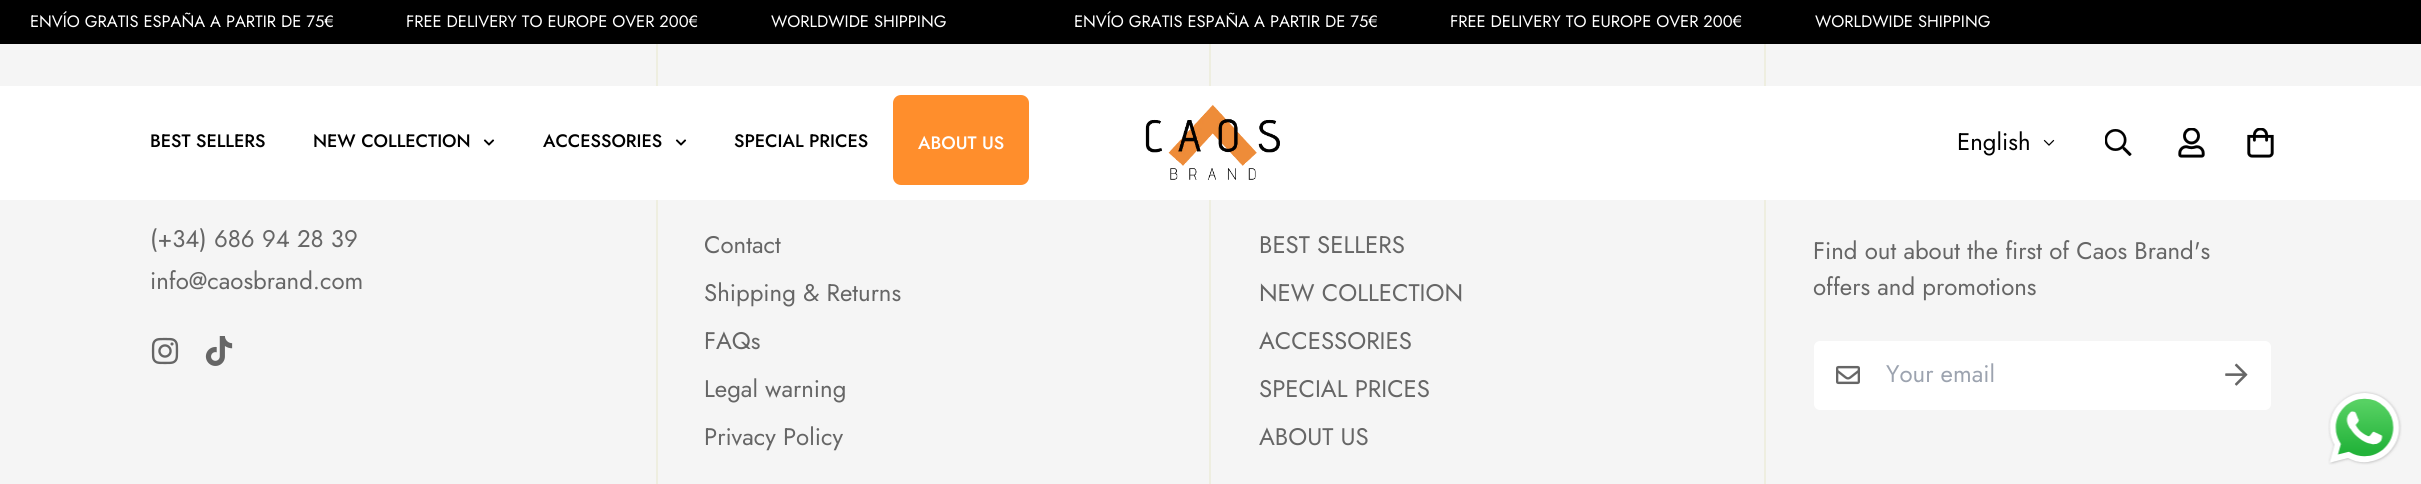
#include <cairo.h>
#include <math.h>
#include <stddef.h>

typedef struct { const char *family; double size; int italic, bold; unsigned color; } style_t;
static cairo_t *ctx;

static void ink(unsigned color) {
    cairo_set_source_rgb(ctx, (color >> 16) / 255.0, (color >> 8 & 255) / 255.0, (color & 255) / 255.0);
}

static void write(double x, double y, const char *s, const style_t *st) {
    cairo_select_font_face(ctx, st->family, st->italic ? CAIRO_FONT_SLANT_ITALIC : CAIRO_FONT_SLANT_NORMAL,
        st->bold ? CAIRO_FONT_WEIGHT_BOLD : CAIRO_FONT_WEIGHT_NORMAL);
    cairo_set_font_size(ctx, st->size);
    ink(st->color);
    cairo_move_to(ctx, x, y);
    cairo_show_text(ctx, s);
}

static void block(double x, double y, double w, double h, unsigned color) {
    ink(color);
    cairo_rectangle(ctx, x, y, w, h);
    cairo_fill(ctx);
}

static void round_path(double x, double y, double w, double h, double r) {
    cairo_new_sub_path(ctx);
    cairo_arc(ctx, x + w - r, y + h - r, r, 0, M_PI / 2);
    cairo_arc(ctx, x + r, y + h - r, r, M_PI / 2, M_PI);
    cairo_arc(ctx, x + r, y + r, r, M_PI, 1.5 * M_PI);
    cairo_arc(ctx, x + w - r, y + r, r, 1.5 * M_PI, 2 * M_PI);
    cairo_close_path(ctx);
}

static void paste(const char *path, double x, double y, double w, double h) {
    cairo_surface_t *image = cairo_image_surface_create_from_png(path);
    cairo_save(ctx);
    cairo_set_source_surface(ctx, image, x, y);
    cairo_rectangle(ctx, x, y, w, h);
    cairo_fill(ctx);
    cairo_restore(ctx);
    cairo_surface_destroy(image);
}

static const style_t s1 = {"Jost", 16.5, 0, 0, 0xffffff};
static const style_t s2 = {"Jost Medium", 18, 0, 0, 0x000000};
static const style_t s3 = {"Jost Medium", 18, 0, 0, 0xffffff};
static const style_t s4 = {"Jost", 24, 0, 0, 0x000000};
static const style_t s5 = {"Jost", 24, 0, 0, 0x666666};
static const style_t s6 = {"Jost", 24, 0, 0, 0x9ca3af};

int main(void) {
    cairo_surface_t *surface = cairo_image_surface_create(CAIRO_FORMAT_RGB24, 2421, 484);
    ctx = cairo_create(surface);
    cairo_font_options_t *options = cairo_font_options_create();
    cairo_font_options_set_hint_metrics(options, CAIRO_HINT_METRICS_OFF);
    cairo_font_options_set_hint_style(options, CAIRO_HINT_STYLE_NONE);
    cairo_set_font_options(ctx, options);
    cairo_set_miter_limit(ctx, 4);
    ink(0xf5f5f5);
    cairo_paint(ctx);
    block(0, 0, 2421, 44, 0x000000);
    write(30, 27, "ENVÍO GRATIS ESPAÑA A PARTIR DE 75€", &s1);
    write(406, 27, "FREE DELIVERY TO EUROPE OVER 200€", &s1);
    write(771, 27, "WORLDWIDE SHIPPING", &s1);
    write(1074, 27, "ENVÍO GRATIS ESPAÑA A PARTIR DE 75€", &s1);
    write(1450, 27, "FREE DELIVERY TO EUROPE OVER 200€", &s1);
    write(1815, 27, "WORLDWIDE SHIPPING", &s1);
    block(656, 44, 2, 440, 0xeeeee0);
    block(1209, 44, 2, 440, 0xeeeee0);
    block(1764, 44, 2, 440, 0xeeeee0);
    block(0, 86, 2421, 114, 0xffffff);
    write(150, 147, "BEST SELLERS", &s2);
    write(313, 147, "NEW COLLECTION", &s2);
    paste("pic1.png", 483, 139, 12, 7);
    write(543, 147, "ACCESSORIES", &s2);
    paste("pic1.png", 675, 139, 12, 7);
    write(734, 147, "SPECIAL PRICES", &s2);
    ink(0xff8e2c);
    round_path(894, 96, 134, 88, 7);
    cairo_fill_preserve(ctx);
    cairo_stroke(ctx);
    write(918, 149, "ABOUT US", &s3);
    paste("pic2.png", 1145, 104, 135, 76);
    write(1957, 150, "English", &s4);
    paste("pic3.png", 2043, 139, 12, 7);
    paste("pic4.png", 2105, 129, 27, 27);
    paste("pic5.png", 2178, 128, 27, 30);
    paste("pic6.png", 2247, 128, 27, 30);
    write(150, 247, "(+34) 686 94 28 39", &s5);
    write(150, 289, "info@caosbrand.com", &s5);
    paste("pic7.png", 151, 337, 28, 28);
    paste("pic8.png", 205, 336, 28, 30);
    write(704, 253, "Contact", &s5);
    write(704, 301, "Shipping & Returns", &s5);
    write(704, 349, "FAQs", &s5);
    write(704, 397, "Legal warning", &s5);
    write(704, 445, "Privacy Policy", &s5);
    write(1259, 253, "BEST SELLERS", &s5);
    write(1259, 301, "NEW COLLECTION", &s5);
    write(1259, 349, "ACCESSORIES", &s5);
    write(1259, 397, "SPECIAL PRICES", &s5);
    write(1259, 445, "ABOUT US", &s5);
    write(1813, 259, "Find out about the first of Caos Brand's", &s5);
    write(1813, 295, "offers and promotions", &s5);
    ink(0xffffff);
    round_path(1814, 341, 457, 69, 6);
    cairo_fill(ctx);
    paste("pic9.png", 1836, 365, 24, 20);
    write(1886, 382, "Your email", &s6);
    paste("pic10.png", 2225, 363, 23, 23);
    paste("pic11.png", 2328, 391, 74, 74);
    cairo_surface_write_to_png(surface, "screenshot.png");
    cairo_font_options_destroy(options);
    cairo_destroy(ctx);
    cairo_surface_destroy(surface);
    return 0;
}
